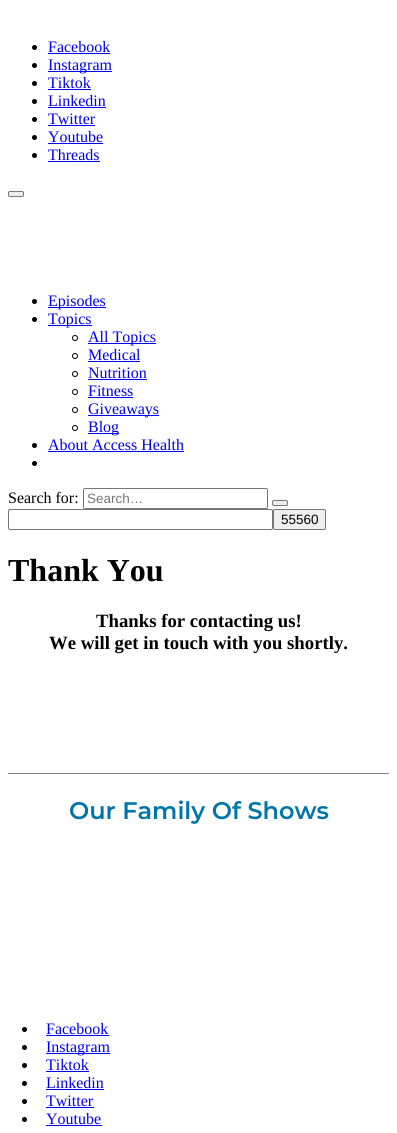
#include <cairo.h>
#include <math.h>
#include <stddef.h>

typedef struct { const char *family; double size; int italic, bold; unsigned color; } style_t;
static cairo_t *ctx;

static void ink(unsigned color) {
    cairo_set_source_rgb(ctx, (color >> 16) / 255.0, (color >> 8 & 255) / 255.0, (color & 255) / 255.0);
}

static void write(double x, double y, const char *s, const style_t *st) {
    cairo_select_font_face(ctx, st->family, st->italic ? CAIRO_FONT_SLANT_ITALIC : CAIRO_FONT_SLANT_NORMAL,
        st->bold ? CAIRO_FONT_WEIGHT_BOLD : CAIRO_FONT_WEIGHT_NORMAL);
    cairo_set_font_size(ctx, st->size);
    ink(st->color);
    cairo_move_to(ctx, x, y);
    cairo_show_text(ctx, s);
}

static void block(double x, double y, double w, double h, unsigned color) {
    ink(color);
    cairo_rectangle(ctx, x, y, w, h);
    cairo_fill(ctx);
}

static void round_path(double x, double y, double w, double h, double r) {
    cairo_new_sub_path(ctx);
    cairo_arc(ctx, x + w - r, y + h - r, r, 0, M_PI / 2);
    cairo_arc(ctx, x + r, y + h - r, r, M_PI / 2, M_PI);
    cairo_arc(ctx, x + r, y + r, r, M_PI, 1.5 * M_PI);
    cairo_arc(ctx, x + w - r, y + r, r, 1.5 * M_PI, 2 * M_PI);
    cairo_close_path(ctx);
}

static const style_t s1 = {"Liberation Serif", 16, 0, 0, 0x0000ee};
static const style_t s2 = {"Liberation Serif", 16, 0, 0, 0x000000};
static const style_t s3 = {"Liberation Sans", 13.5, 0, 0, 0x757575};
static const style_t s4 = {"Liberation Sans", 13.5, 0, 0, 0x000000};
static const style_t s5 = {"Liberation Serif", 32, 0, 1, 0x000000};
static const style_t s6 = {"Liberation Serif", 18.75, 0, 1, 0x000000};
static const style_t s7 = {"Montserrat SemiBold", 24, 0, 0, 0x0075a9};

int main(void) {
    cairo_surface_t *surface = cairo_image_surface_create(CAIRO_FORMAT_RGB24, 397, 1133);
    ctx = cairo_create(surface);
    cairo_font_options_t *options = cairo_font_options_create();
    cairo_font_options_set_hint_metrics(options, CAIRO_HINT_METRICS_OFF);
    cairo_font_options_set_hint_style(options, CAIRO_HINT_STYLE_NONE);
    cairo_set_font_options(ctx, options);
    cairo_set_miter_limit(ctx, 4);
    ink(0xffffff);
    cairo_paint(ctx);
    ink(0x000000);
    cairo_arc(ctx, 34.5, 47.5, 2.5, 0, 2 * M_PI);
    cairo_fill(ctx);
    write(48, 52, "Facebook", &s1);
    block(48, 53, 62, 1, 0x0000ee);
    ink(0x000000);
    cairo_new_path(ctx);
    cairo_arc(ctx, 34.5, 65.5, 2.5, 0, 2 * M_PI);
    cairo_fill(ctx);
    block(48, 71, 64, 1, 0x0000ee);
    write(48, 70, "Instagram", &s1);
    ink(0x000000);
    cairo_new_path(ctx);
    cairo_arc(ctx, 34.5, 83.5, 2.5, 0, 2 * M_PI);
    cairo_fill(ctx);
    write(48, 88, "Tiktok", &s1);
    block(48, 89, 43, 1, 0x0000ee);
    ink(0x000000);
    cairo_new_path(ctx);
    cairo_arc(ctx, 34.5, 101.5, 2.5, 0, 2 * M_PI);
    cairo_fill(ctx);
    write(48, 106, "Linkedin", &s1);
    block(48, 107, 58, 1, 0x0000ee);
    ink(0x000000);
    cairo_new_path(ctx);
    cairo_arc(ctx, 34.5, 119.5, 2.5, 0, 2 * M_PI);
    cairo_fill(ctx);
    write(48, 124, "Twitter", &s1);
    block(48, 125, 47, 1, 0x0000ee);
    ink(0x000000);
    cairo_new_path(ctx);
    cairo_arc(ctx, 34.5, 137.5, 2.5, 0, 2 * M_PI);
    cairo_fill(ctx);
    write(48, 142, "Youtube", &s1);
    block(48, 143, 55, 1, 0x0000ee);
    ink(0x000000);
    cairo_new_path(ctx);
    cairo_arc(ctx, 34.5, 155.5, 2.5, 0, 2 * M_PI);
    cairo_fill(ctx);
    write(48, 160, "Threads", &s1);
    block(48, 161, 52, 1, 0x0000ee);
    ink(0xefefef);
    round_path(8.5, 191.5, 15, 5, 1.5);
    cairo_fill_preserve(ctx);
    ink(0x767676);
    cairo_set_line_width(ctx, 1);
    cairo_stroke(ctx);
    ink(0x000000);
    cairo_arc(ctx, 34.5, 301.5, 2.5, 0, 2 * M_PI);
    cairo_fill(ctx);
    block(48, 307, 58, 1, 0x0000ee);
    write(48, 306, "Episodes", &s1);
    ink(0x000000);
    cairo_new_path(ctx);
    cairo_arc(ctx, 34.5, 319.5, 2.5, 0, 2 * M_PI);
    cairo_fill(ctx);
    block(48, 325, 44, 1, 0x0000ee);
    write(48, 324, "Topics", &s1);
    cairo_new_path(ctx);
    cairo_arc(ctx, 75, 338, 2.5, 0, 2 * M_PI);
    ink(0x000000);
    cairo_stroke(ctx);
    block(88, 343, 68, 1, 0x0000ee);
    write(88, 342, "All Topics", &s1);
    cairo_new_path(ctx);
    cairo_arc(ctx, 75, 356, 2.5, 0, 2 * M_PI);
    ink(0x000000);
    cairo_stroke(ctx);
    write(88, 360, "Medical", &s1);
    block(88, 361, 52, 1, 0x0000ee);
    cairo_new_path(ctx);
    cairo_arc(ctx, 75, 374, 2.5, 0, 2 * M_PI);
    ink(0x000000);
    cairo_stroke(ctx);
    write(88, 378, "Nutrition", &s1);
    block(88, 379, 59, 1, 0x0000ee);
    cairo_new_path(ctx);
    cairo_arc(ctx, 75, 392, 2.5, 0, 2 * M_PI);
    ink(0x000000);
    cairo_stroke(ctx);
    write(88, 396, "Fitness", &s1);
    block(88, 397, 45, 1, 0x0000ee);
    cairo_new_path(ctx);
    cairo_arc(ctx, 75, 410, 2.5, 0, 2 * M_PI);
    ink(0x000000);
    cairo_stroke(ctx);
    block(88, 415, 71, 1, 0x0000ee);
    write(88, 414, "Giveaways", &s1);
    cairo_new_path(ctx);
    cairo_arc(ctx, 75, 428, 2.5, 0, 2 * M_PI);
    ink(0x000000);
    cairo_stroke(ctx);
    block(88, 433, 31, 1, 0x0000ee);
    write(88, 432, "Blog", &s1);
    ink(0x000000);
    cairo_new_path(ctx);
    cairo_arc(ctx, 34.5, 445.5, 2.5, 0, 2 * M_PI);
    cairo_fill(ctx);
    write(48, 450, "About Access Health", &s1);
    block(48, 451, 136, 1, 0x0000ee);
    ink(0x000000);
    cairo_new_path(ctx);
    cairo_arc(ctx, 34.5, 463.5, 2.5, 0, 2 * M_PI);
    cairo_fill(ctx);
    write(8, 503, "Search for:", &s2);
    round_path(83.5, 488.5, 184, 20, 1.5);
    ink(0x767676);
    cairo_stroke(ctx);
    write(87, 503, "Search…", &s3);
    ink(0xefefef);
    round_path(272.5, 500.5, 15, 5, 1.5);
    cairo_fill_preserve(ctx);
    ink(0x767676);
    cairo_stroke(ctx);
    round_path(8.5, 509.5, 264, 20, 1.5);
    cairo_stroke(ctx);
    ink(0xefefef);
    round_path(273.5, 509.5, 52, 20, 1.5);
    cairo_fill_preserve(ctx);
    ink(0x767676);
    cairo_stroke(ctx);
    write(281, 524, "55560", &s4);
    write(8, 581, "Thank You", &s5);
    write(96, 627, "Thanks for contacting us!", &s6);
    write(49, 649, "We will get in touch with you shortly.", &s6);
    block(8, 773, 381, 1, 0x808080);
    write(69, 819, "Our Family Of Shows", &s7);
    ink(0x000000);
    cairo_new_path(ctx);
    cairo_arc(ctx, 24.5, 1029.5, 2.5, 0, 2 * M_PI);
    cairo_fill(ctx);
    write(46, 1034, "Facebook", &s1);
    block(46, 1035, 63, 1, 0x0000ee);
    ink(0x000000);
    cairo_new_path(ctx);
    cairo_arc(ctx, 24.5, 1047.5, 2.5, 0, 2 * M_PI);
    cairo_fill(ctx);
    block(46, 1053, 64, 1, 0x0000ee);
    write(46, 1052, "Instagram", &s1);
    ink(0x000000);
    cairo_new_path(ctx);
    cairo_arc(ctx, 24.5, 1065.5, 2.5, 0, 2 * M_PI);
    cairo_fill(ctx);
    write(46, 1070, "Tiktok", &s1);
    block(46, 1071, 43, 1, 0x0000ee);
    ink(0x000000);
    cairo_new_path(ctx);
    cairo_arc(ctx, 24.5, 1083.5, 2.5, 0, 2 * M_PI);
    cairo_fill(ctx);
    write(46, 1088, "Linkedin", &s1);
    block(46, 1089, 58, 1, 0x0000ee);
    ink(0x000000);
    cairo_new_path(ctx);
    cairo_arc(ctx, 24.5, 1101.5, 2.5, 0, 2 * M_PI);
    cairo_fill(ctx);
    write(46, 1106, "Twitter", &s1);
    block(46, 1107, 48, 1, 0x0000ee);
    ink(0x000000);
    cairo_new_path(ctx);
    cairo_arc(ctx, 24.5, 1119.5, 2.5, 0, 2 * M_PI);
    cairo_fill(ctx);
    write(46, 1124, "Youtube", &s1);
    block(46, 1125, 56, 1, 0x0000ee);
    cairo_surface_write_to_png(surface, "screenshot.png");
    cairo_font_options_destroy(options);
    cairo_destroy(ctx);
    cairo_surface_destroy(surface);
    return 0;
}
